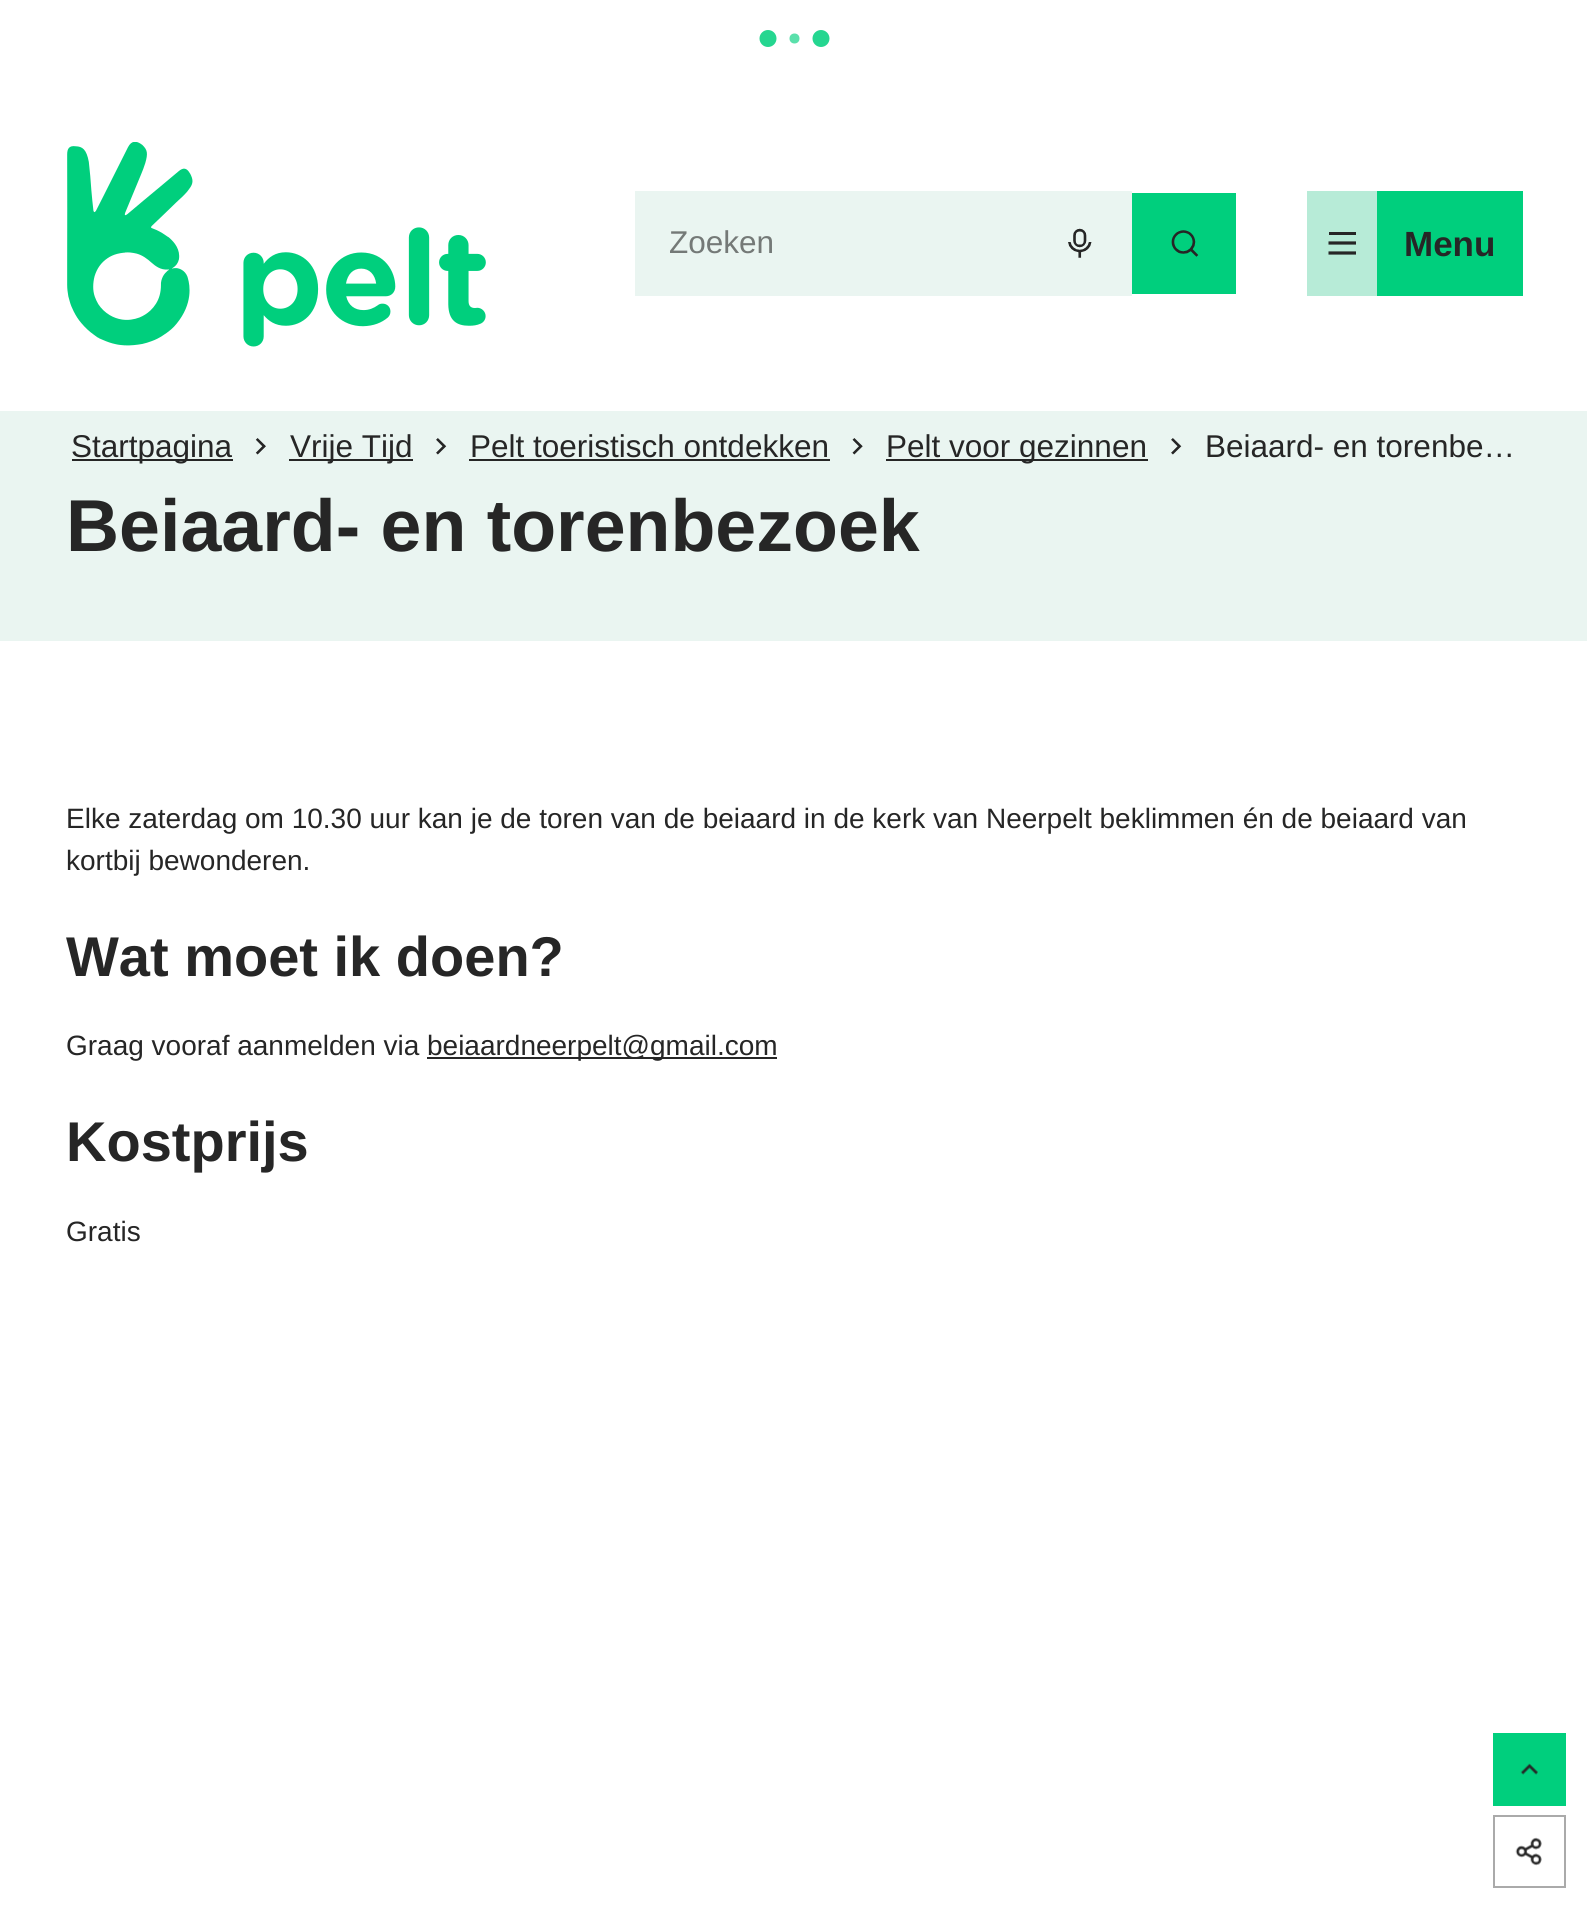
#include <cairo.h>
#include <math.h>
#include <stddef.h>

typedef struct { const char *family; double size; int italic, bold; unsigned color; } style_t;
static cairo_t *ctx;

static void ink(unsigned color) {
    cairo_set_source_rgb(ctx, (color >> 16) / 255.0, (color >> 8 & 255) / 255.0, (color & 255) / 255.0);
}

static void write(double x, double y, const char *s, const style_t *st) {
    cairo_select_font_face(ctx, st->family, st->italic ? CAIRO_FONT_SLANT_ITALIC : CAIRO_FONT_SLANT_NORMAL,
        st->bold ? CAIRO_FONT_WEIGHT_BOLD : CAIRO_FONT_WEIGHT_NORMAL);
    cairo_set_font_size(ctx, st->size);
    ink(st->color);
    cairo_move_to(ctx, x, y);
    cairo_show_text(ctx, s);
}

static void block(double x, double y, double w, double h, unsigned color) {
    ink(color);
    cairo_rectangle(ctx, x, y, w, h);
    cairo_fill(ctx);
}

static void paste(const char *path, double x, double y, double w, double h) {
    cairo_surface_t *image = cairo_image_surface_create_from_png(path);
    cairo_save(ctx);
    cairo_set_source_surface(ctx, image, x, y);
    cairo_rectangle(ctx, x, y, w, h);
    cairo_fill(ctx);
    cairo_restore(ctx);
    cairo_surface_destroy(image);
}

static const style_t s1 = {"Liberation Sans", 31.5, 0, 0, 0x747977};
static const style_t s2 = {"Liberation Sans", 35, 0, 1, 0x262626};
static const style_t s3 = {"Liberation Sans", 31.5, 0, 0, 0x262626};
static const style_t s4 = {"Liberation Sans", 73.5, 0, 1, 0x262626};
static const style_t s5 = {"Liberation Sans", 28, 0, 0, 0x262626};
static const style_t s6 = {"Liberation Sans", 56, 0, 1, 0x262626};

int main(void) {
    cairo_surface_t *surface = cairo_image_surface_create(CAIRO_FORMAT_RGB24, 1587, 1908);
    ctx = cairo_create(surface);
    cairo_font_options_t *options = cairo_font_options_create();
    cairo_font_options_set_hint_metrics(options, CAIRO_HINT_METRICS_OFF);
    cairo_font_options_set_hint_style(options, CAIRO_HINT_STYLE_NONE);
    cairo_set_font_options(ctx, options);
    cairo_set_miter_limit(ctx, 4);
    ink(0xffffff);
    cairo_paint(ctx);
    ink(0x25d690);
    cairo_arc(ctx, 768, 38.5, 8.5, 0, 2 * M_PI);
    cairo_fill(ctx);
    ink(0x5ae0ab);
    cairo_arc(ctx, 794.5, 38.5, 5, 0, 2 * M_PI);
    cairo_fill(ctx);
    ink(0x25d690);
    cairo_arc(ctx, 821, 38.5, 8.5, 0, 2 * M_PI);
    cairo_fill(ctx);
    paste("pic1.png", 67, 142, 419, 205);
    block(635, 191, 497, 105, 0xeaf5f1);
    paste("pic2.png", 1068, 228, 24, 30);
    block(1132, 193, 104, 101, 0x00cf7d);
    paste("pic3.png", 1171, 230, 28, 27);
    write(669, 253, "Zoeken", &s1);
    block(1377, 191, 146, 105, 0x00cf7d);
    block(1307, 191, 70, 105, 0xb7ebd7);
    block(1329, 232, 27, 3, 0x262626);
    cairo_new_path(ctx);
    cairo_move_to(ctx, 1328.5, 243);
    cairo_line_to(ctx, 1356, 243);
    cairo_move_to(ctx, 1328.5, 253);
    cairo_line_to(ctx, 1356, 253);
    cairo_set_line_width(ctx, 3.2);
    cairo_stroke(ctx);
    write(1404, 256, "Menu", &s2);
    block(0, 411, 1587, 230, 0xeaf5f1);
    block(72, 459, 161, 2, 0x262626);
    write(71, 457, "Startpagina", &s3);
    paste("pic4.png", 255, 438, 11, 17);
    block(289, 459, 124, 2, 0x262626);
    write(290, 457, "Vrije Tijd", &s3);
    paste("pic5.png", 436, 438, 11, 17);
    write(470, 457, "Pelt toeristisch ontdekken", &s3);
    block(469, 459, 361, 2, 0x262626);
    paste("pic6.png", 852, 438, 11, 17);
    block(886, 459, 262, 2, 0x262626);
    write(886, 457, "Pelt voor gezinnen", &s3);
    paste("pic5.png", 1171, 438, 11, 17);
    write(1205, 457, "Beiaard- en torenbe…", &s3);
    write(66, 551, "Beiaard- en torenbezoek", &s4);
    write(66, 828, "Elke zaterdag om 10.30 uur kan je de toren van de beiaard in de kerk van Neerpelt beklimmen én de beiaard van", &s5);
    write(66, 870, "kortbij bewonderen.", &s5);
    write(66, 976, "Wat moet ik doen?", &s6);
    write(66, 1055, "Graag vooraf aanmelden via", &s5);
    block(427, 1057, 350, 2, 0x262626);
    write(427, 1055, "beiaardneerpelt@gmail.com", &s5);
    write(66, 1161, "Kostprijs", &s6);
    write(66, 1241, "Gratis", &s5);
    block(1493, 1733, 73, 73, 0x00cf7d);
    paste("pic7.png", 1520, 1763, 18, 12);
    cairo_rectangle(ctx, 1494, 1816, 71, 71);
    ink(0xaaaaaa);
    cairo_set_line_width(ctx, 2);
    cairo_stroke(ctx);
    paste("pic8.png", 1515, 1837, 27, 29);
    cairo_surface_write_to_png(surface, "screenshot.png");
    cairo_font_options_destroy(options);
    cairo_destroy(ctx);
    cairo_surface_destroy(surface);
    return 0;
}
